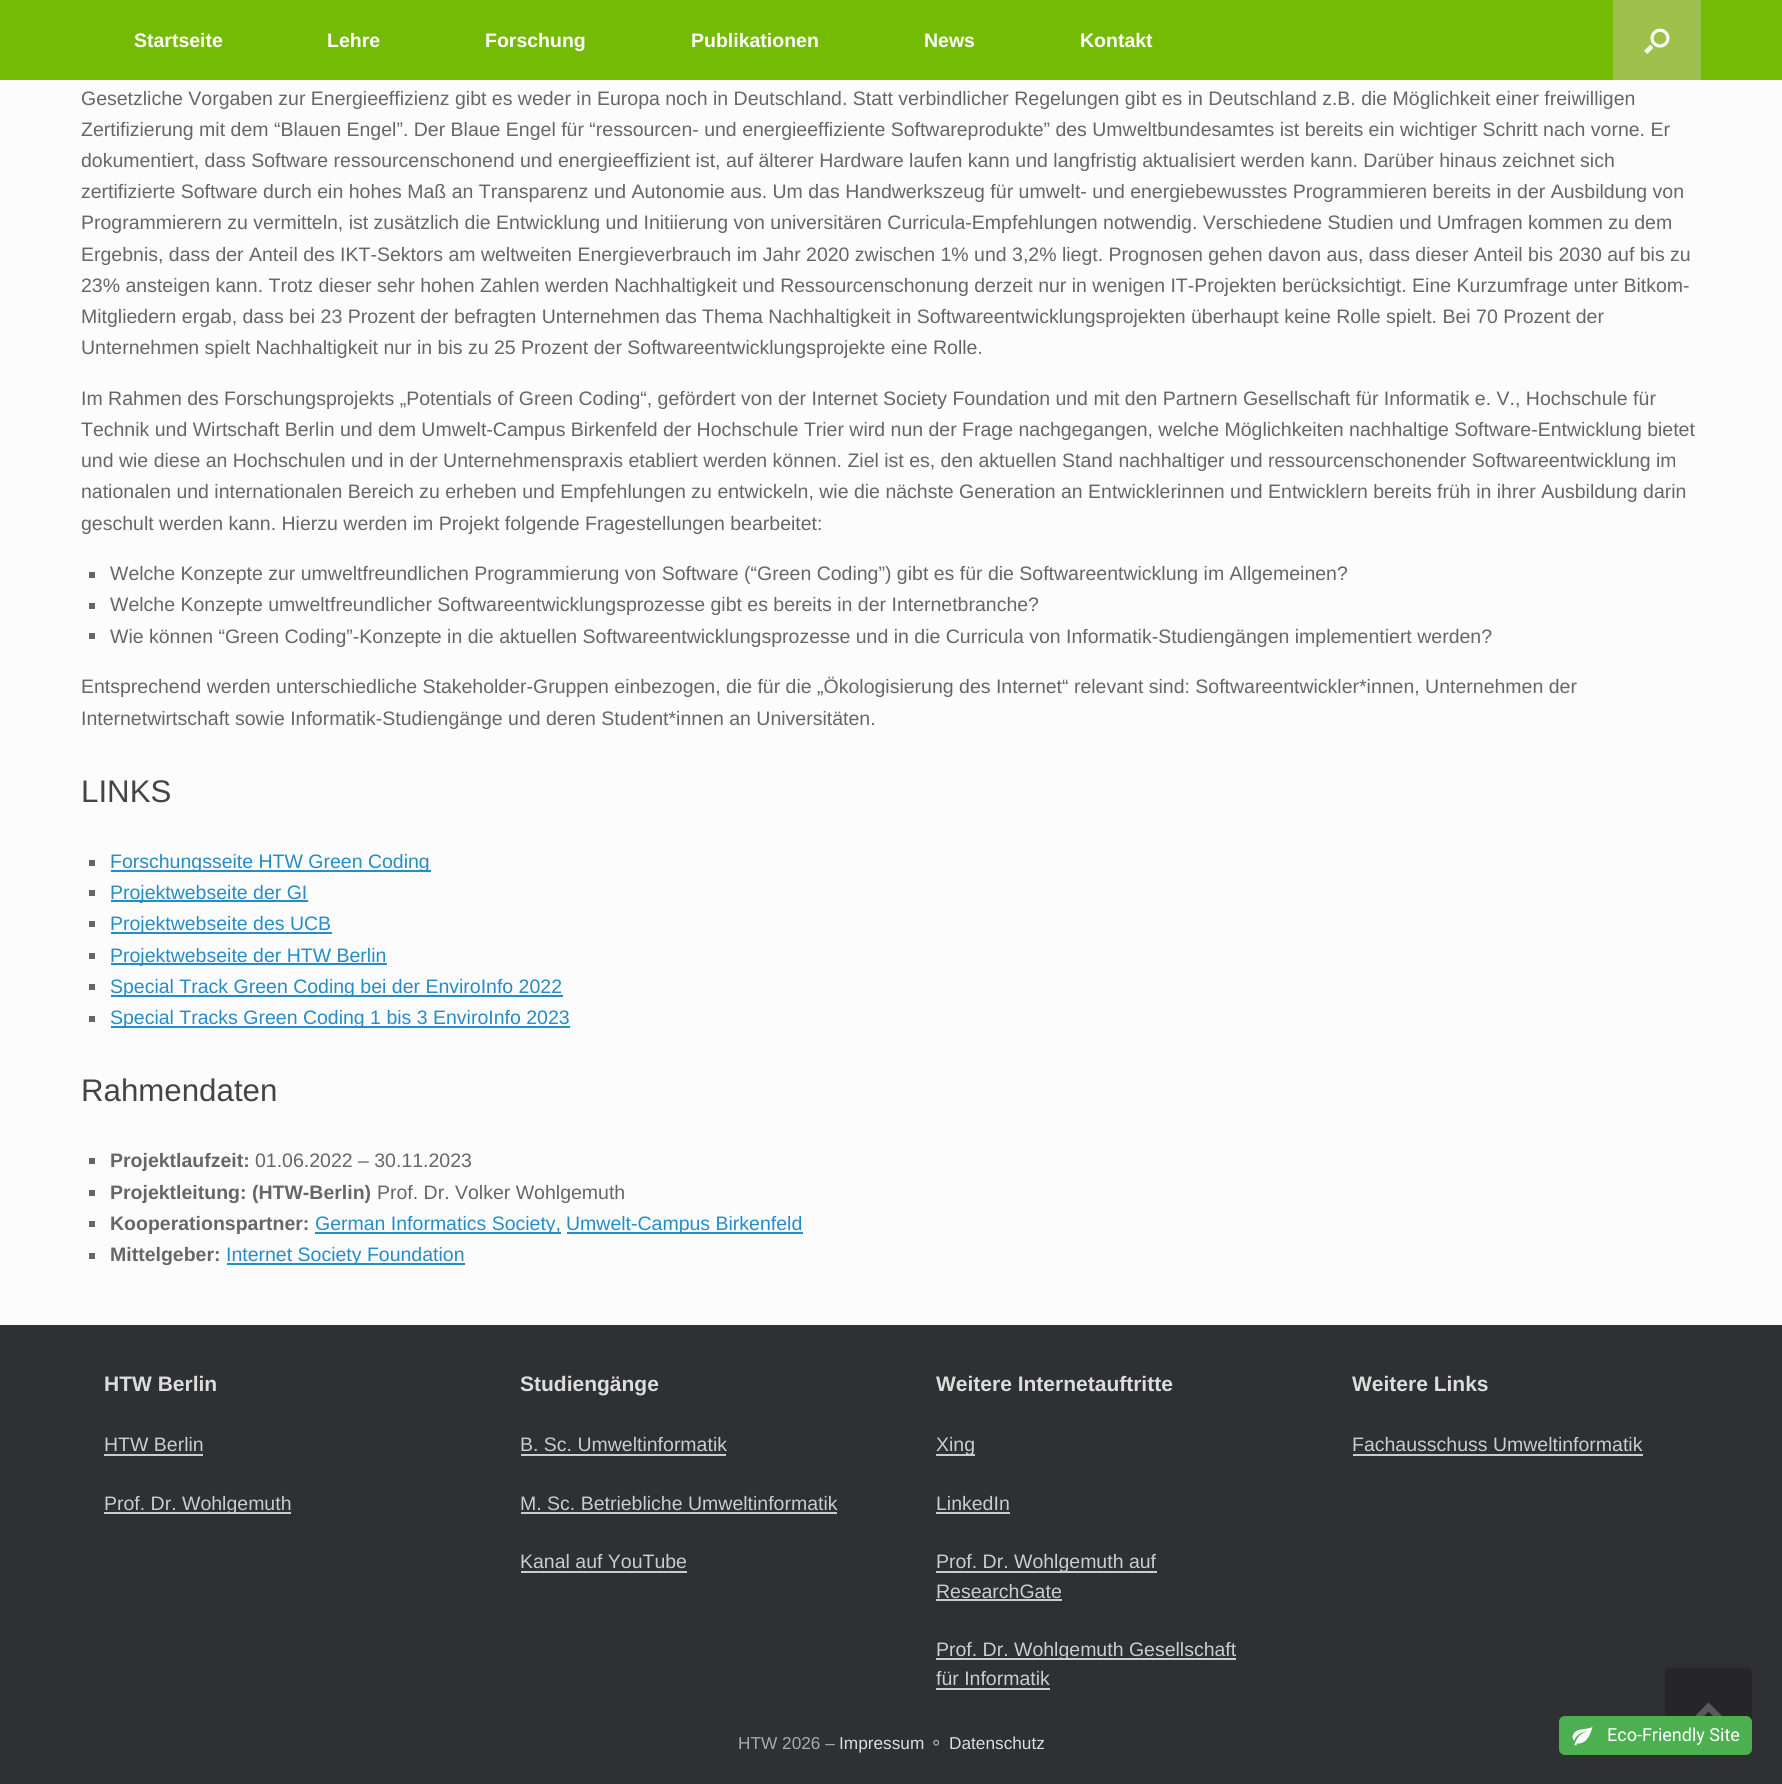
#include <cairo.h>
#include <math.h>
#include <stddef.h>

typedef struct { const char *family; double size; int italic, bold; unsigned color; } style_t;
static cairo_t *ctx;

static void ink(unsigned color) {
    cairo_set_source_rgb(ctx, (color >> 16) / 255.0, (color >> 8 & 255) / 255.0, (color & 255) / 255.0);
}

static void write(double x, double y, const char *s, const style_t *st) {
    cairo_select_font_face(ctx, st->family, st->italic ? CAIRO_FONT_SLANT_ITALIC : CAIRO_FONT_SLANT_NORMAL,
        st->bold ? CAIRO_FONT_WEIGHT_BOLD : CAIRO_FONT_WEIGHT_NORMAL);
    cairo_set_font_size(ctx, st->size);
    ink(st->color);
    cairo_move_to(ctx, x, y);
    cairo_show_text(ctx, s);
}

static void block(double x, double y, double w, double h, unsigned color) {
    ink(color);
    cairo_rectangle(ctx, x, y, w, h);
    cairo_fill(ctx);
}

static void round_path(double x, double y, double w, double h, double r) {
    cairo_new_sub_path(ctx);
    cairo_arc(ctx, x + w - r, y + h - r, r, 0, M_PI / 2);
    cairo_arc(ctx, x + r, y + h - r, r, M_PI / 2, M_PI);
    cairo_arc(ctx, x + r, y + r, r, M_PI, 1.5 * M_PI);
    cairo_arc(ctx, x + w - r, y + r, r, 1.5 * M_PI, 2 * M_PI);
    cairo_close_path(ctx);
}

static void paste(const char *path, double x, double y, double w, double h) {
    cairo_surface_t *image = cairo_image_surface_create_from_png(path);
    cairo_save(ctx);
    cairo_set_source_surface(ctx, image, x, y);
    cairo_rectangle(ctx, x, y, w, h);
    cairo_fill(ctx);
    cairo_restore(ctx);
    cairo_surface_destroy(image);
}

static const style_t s1 = {"Liberation Sans", 19.5, 0, 1, 0xffffff};
static const style_t s2 = {"Liberation Sans", 19.5, 0, 0, 0x666666};
static const style_t s3 = {"Liberation Sans", 31.25, 0, 0, 0x444444};
static const style_t s4 = {"Liberation Sans", 19.5, 0, 0, 0x248cc8};
static const style_t s5 = {"Liberation Sans", 19.5, 0, 1, 0x666666};
static const style_t s6 = {"Liberation Sans", 21, 0, 1, 0xdddddd};
static const style_t s7 = {"Liberation Sans", 19.5, 0, 0, 0xcccccc};
static const style_t s8 = {"Liberation Sans", 17.25, 0, 0, 0xaaaaaa};
static const style_t s9 = {"Liberation Sans", 17.25, 0, 0, 0xdddddd};
static const style_t s10 = {"DejaVu Sans", 17.25, 0, 0, 0xaaaaaa};
static const style_t s11 = {"Roboto", 18, 0, 0, 0xffffff};

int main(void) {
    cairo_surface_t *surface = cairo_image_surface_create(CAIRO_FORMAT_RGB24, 1782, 1784);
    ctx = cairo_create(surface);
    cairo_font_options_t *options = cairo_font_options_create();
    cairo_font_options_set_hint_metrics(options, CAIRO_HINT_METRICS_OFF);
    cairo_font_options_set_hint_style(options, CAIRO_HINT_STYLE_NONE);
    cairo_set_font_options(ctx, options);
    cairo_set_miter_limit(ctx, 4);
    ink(0x2f3033);
    cairo_paint(ctx);
    block(0, 0, 1782, 80, 0x75bb05);
    write(134, 47, "Startseite", &s1);
    write(327, 47, "Lehre", &s1);
    write(485, 47, "Forschung", &s1);
    write(691, 47, "Publikationen", &s1);
    write(924, 47, "News", &s1);
    write(1080, 47, "Kontakt", &s1);
    block(1613, 0, 88, 80, 0x9dc14a);
    paste("pic1.png", 1644, 28, 26, 26);
    block(0, 80, 1782, 1245, 0xfcfcfc);
    write(81, 105, "Gesetzliche Vorgaben zur Energieeffizienz gibt es weder in Europa noch in Deutschland. Statt verbindlicher Regelungen gibt es in Deutschland z.B. die Möglichkeit einer freiwilligen", &s2);
    write(81, 136, "Zertifizierung mit dem “Blauen Engel”. Der Blaue Engel für “ressourcen- und energieeffiziente Softwareprodukte” des Umweltbundesamtes ist bereits ein wichtiger Schritt nach vorne. Er", &s2);
    write(81, 167, "dokumentiert, dass Software ressourcenschonend und energieeffizient ist, auf älterer Hardware laufen kann und langfristig aktualisiert werden kann. Darüber hinaus zeichnet sich", &s2);
    write(81, 198, "zertifizierte Software durch ein hohes Maß an Transparenz und Autonomie aus. Um das Handwerkszeug für umwelt- und energiebewusstes Programmieren bereits in der Ausbildung von", &s2);
    write(81, 229, "Programmierern zu vermitteln, ist zusätzlich die Entwicklung und Initiierung von universitären Curricula-Empfehlungen notwendig. Verschiedene Studien und Umfragen kommen zu dem", &s2);
    write(81, 261, "Ergebnis, dass der Anteil des IKT-Sektors am weltweiten Energieverbrauch im Jahr 2020 zwischen 1% und 3,2% liegt. Prognosen gehen davon aus, dass dieser Anteil bis 2030 auf bis zu", &s2);
    write(81, 292, "23% ansteigen kann. Trotz dieser sehr hohen Zahlen werden Nachhaltigkeit und Ressourcenschonung derzeit nur in wenigen IT-Projekten berücksichtigt. Eine Kurzumfrage unter Bitkom-", &s2);
    write(81, 323, "Mitgliedern ergab, dass bei 23 Prozent der befragten Unternehmen das Thema Nachhaltigkeit in Softwareentwicklungsprojekten überhaupt keine Rolle spielt. Bei 70 Prozent der", &s2);
    write(81, 354, "Unternehmen spielt Nachhaltigkeit nur in bis zu 25 Prozent der Softwareentwicklungsprojekte eine Rolle.", &s2);
    write(81, 405, "Im Rahmen des Forschungsprojekts „Potentials of Green Coding“, gefördert von der Internet Society Foundation und mit den Partnern Gesellschaft für Informatik e. V., Hochschule für", &s2);
    write(81, 436, "Technik und Wirtschaft Berlin und dem Umwelt-Campus Birkenfeld der Hochschule Trier wird nun der Frage nachgegangen, welche Möglichkeiten nachhaltige Software-Entwicklung bietet", &s2);
    write(81, 467, "und wie diese an Hochschulen und in der Unternehmenspraxis etabliert werden können. Ziel ist es, den aktuellen Stand nachhaltiger und ressourcenschonender Softwareentwicklung im", &s2);
    write(81, 498, "nationalen und internationalen Bereich zu erheben und Empfehlungen zu entwickeln, wie die nächste Generation an Entwicklerinnen und Entwicklern bereits früh in ihrer Ausbildung darin", &s2);
    write(81, 530, "geschult werden kann. Hierzu werden im Projekt folgende Fragestellungen bearbeitet:", &s2);
    block(89, 572, 6, 6, 0x666666);
    write(110, 580, "Welche Konzepte zur umweltfreundlichen Programmierung von Software (“Green Coding”) gibt es für die Softwareentwicklung im Allgemeinen?", &s2);
    block(89, 603, 6, 6, 0x666666);
    write(110, 611, "Welche Konzepte umweltfreundlicher Softwareentwicklungsprozesse gibt es bereits in der Internetbranche?", &s2);
    block(89, 633, 6, 6, 0x666666);
    write(110, 643, "Wie können “Green Coding”-Konzepte in die aktuellen Softwareentwicklungsprozesse und in die Curricula von Informatik-Studiengängen implementiert werden?", &s2);
    write(81, 693, "Entsprechend werden unterschiedliche Stakeholder-Gruppen einbezogen, die für die „Ökologisierung des Internet“ relevant sind: Softwareentwickler*innen, Unternehmen der", &s2);
    write(81, 725, "Internetwirtschaft sowie Informatik-Studiengänge und deren Student*innen an Universitäten.", &s2);
    write(81, 802, "LINKS", &s3);
    block(89, 860, 6, 6, 0x666666);
    block(111, 870, 320, 2, 0x248cc8);
    write(110, 868, "Forschungsseite HTW Green Coding", &s4);
    block(89, 890, 6, 6, 0x666666);
    block(111, 900, 197, 2, 0x248cc8);
    write(110, 899, "Projektwebseite der GI", &s4);
    block(89, 921, 6, 6, 0x666666);
    block(111, 932, 221, 2, 0x248cc8);
    write(110, 930, "Projektwebseite des UCB", &s4);
    block(89, 953, 6, 6, 0x666666);
    block(111, 963, 276, 2, 0x248cc8);
    write(110, 962, "Projektwebseite der HTW Berlin", &s4);
    block(89, 984, 6, 6, 0x666666);
    block(111, 995, 452, 2, 0x248cc8);
    write(110, 993, "Special Track Green Coding bei der EnviroInfo 2022", &s4);
    block(89, 1016, 6, 6, 0x666666);
    block(111, 1026, 459, 2, 0x248cc8);
    write(110, 1024, "Special Tracks Green Coding 1 bis 3 EnviroInfo 2023", &s4);
    write(81, 1101, "Rahmendaten", &s3);
    block(89, 1158, 6, 6, 0x666666);
    write(110, 1167, "Projektlaufzeit:", &s5);
    write(255, 1167, "01.06.2022 – 30.11.2023", &s2);
    block(89, 1190, 6, 6, 0x666666);
    write(110, 1199, "Projektleitung: (HTW-Berlin)", &s5);
    write(377, 1199, "Prof. Dr. Volker Wohlgemuth", &s2);
    block(89, 1221, 6, 6, 0x666666);
    write(110, 1230, "Kooperationspartner:", &s5);
    block(315, 1232, 246, 2, 0x248cc8);
    write(315, 1230, "German Informatics Society,", &s4);
    block(567, 1232, 236, 2, 0x248cc8);
    write(566, 1230, "Umwelt-Campus Birkenfeld", &s4);
    block(89, 1253, 6, 6, 0x666666);
    write(110, 1261, "Mittelgeber:", &s5);
    block(227, 1263, 238, 2, 0x248cc8);
    write(226, 1261, "Internet Society Foundation", &s4);
    write(104, 1391, "HTW Berlin", &s6);
    write(104, 1451, "HTW Berlin", &s7);
    block(104, 1454, 99, 2, 0xcccccc);
    block(104, 1512, 187, 2, 0xcccccc);
    write(104, 1510, "Prof. Dr. Wohlgemuth", &s7);
    write(520, 1391, "Studiengänge", &s6);
    write(520, 1451, "B. Sc. Umweltinformatik", &s7);
    block(521, 1454, 205, 2, 0xcccccc);
    write(520, 1510, "M. Sc. Betriebliche Umweltinformatik", &s7);
    block(521, 1512, 316, 2, 0xcccccc);
    write(520, 1568, "Kanal auf YouTube", &s7);
    block(521, 1571, 166, 2, 0xcccccc);
    write(936, 1391, "Weitere Internetauftritte", &s6);
    block(936, 1454, 39, 2, 0xcccccc);
    write(936, 1451, "Xing", &s7);
    write(936, 1510, "LinkedIn", &s7);
    block(936, 1512, 74, 2, 0xcccccc);
    block(936, 1571, 221, 2, 0xcccccc);
    write(936, 1568, "Prof. Dr. Wohlgemuth auf", &s7);
    write(936, 1598, "ResearchGate", &s7);
    block(936, 1599, 126, 2, 0xcccccc);
    block(936, 1658, 300, 2, 0xcccccc);
    write(936, 1656, "Prof. Dr. Wohlgemuth Gesellschaft", &s7);
    write(936, 1685, "für Informatik", &s7);
    block(936, 1688, 114, 2, 0xcccccc);
    write(1352, 1391, "Weitere Links", &s6);
    write(1352, 1451, "Fachausschuss Umweltinformatik", &s7);
    block(1353, 1454, 290, 2, 0xcccccc);
    write(738, 1749, "HTW 2026 –", &s8);
    write(839, 1749, "Impressum", &s9);
    write(929, 1749, "⚬", &s10);
    write(949, 1749, "Datenschutz", &s9);
    ink(0x262629);
    round_path(1665, 1668, 87, 87, 5);
    cairo_fill(ctx);
    ink(0x59595c);
    cairo_new_path(ctx);
    cairo_move_to(ctx, 1722, 1716);
    cairo_line_to(ctx, 1708.5, 1702.5);
    cairo_line_to(ctx, 1695, 1716);
    cairo_line_to(ctx, 1699.5, 1720.5);
    cairo_line_to(ctx, 1708.5, 1711.5);
    cairo_line_to(ctx, 1717.5, 1720.5);
    cairo_close_path(ctx);
    cairo_fill(ctx);
    ink(0x4caf50);
    round_path(1559, 1716, 193, 39, 6);
    cairo_fill(ctx);
    paste("pic2.png", 1572, 1726, 21, 20);
    write(1607, 1741, "Eco-Friendly Site", &s11);
    cairo_surface_write_to_png(surface, "screenshot.png");
    cairo_font_options_destroy(options);
    cairo_destroy(ctx);
    cairo_surface_destroy(surface);
    return 0;
}
